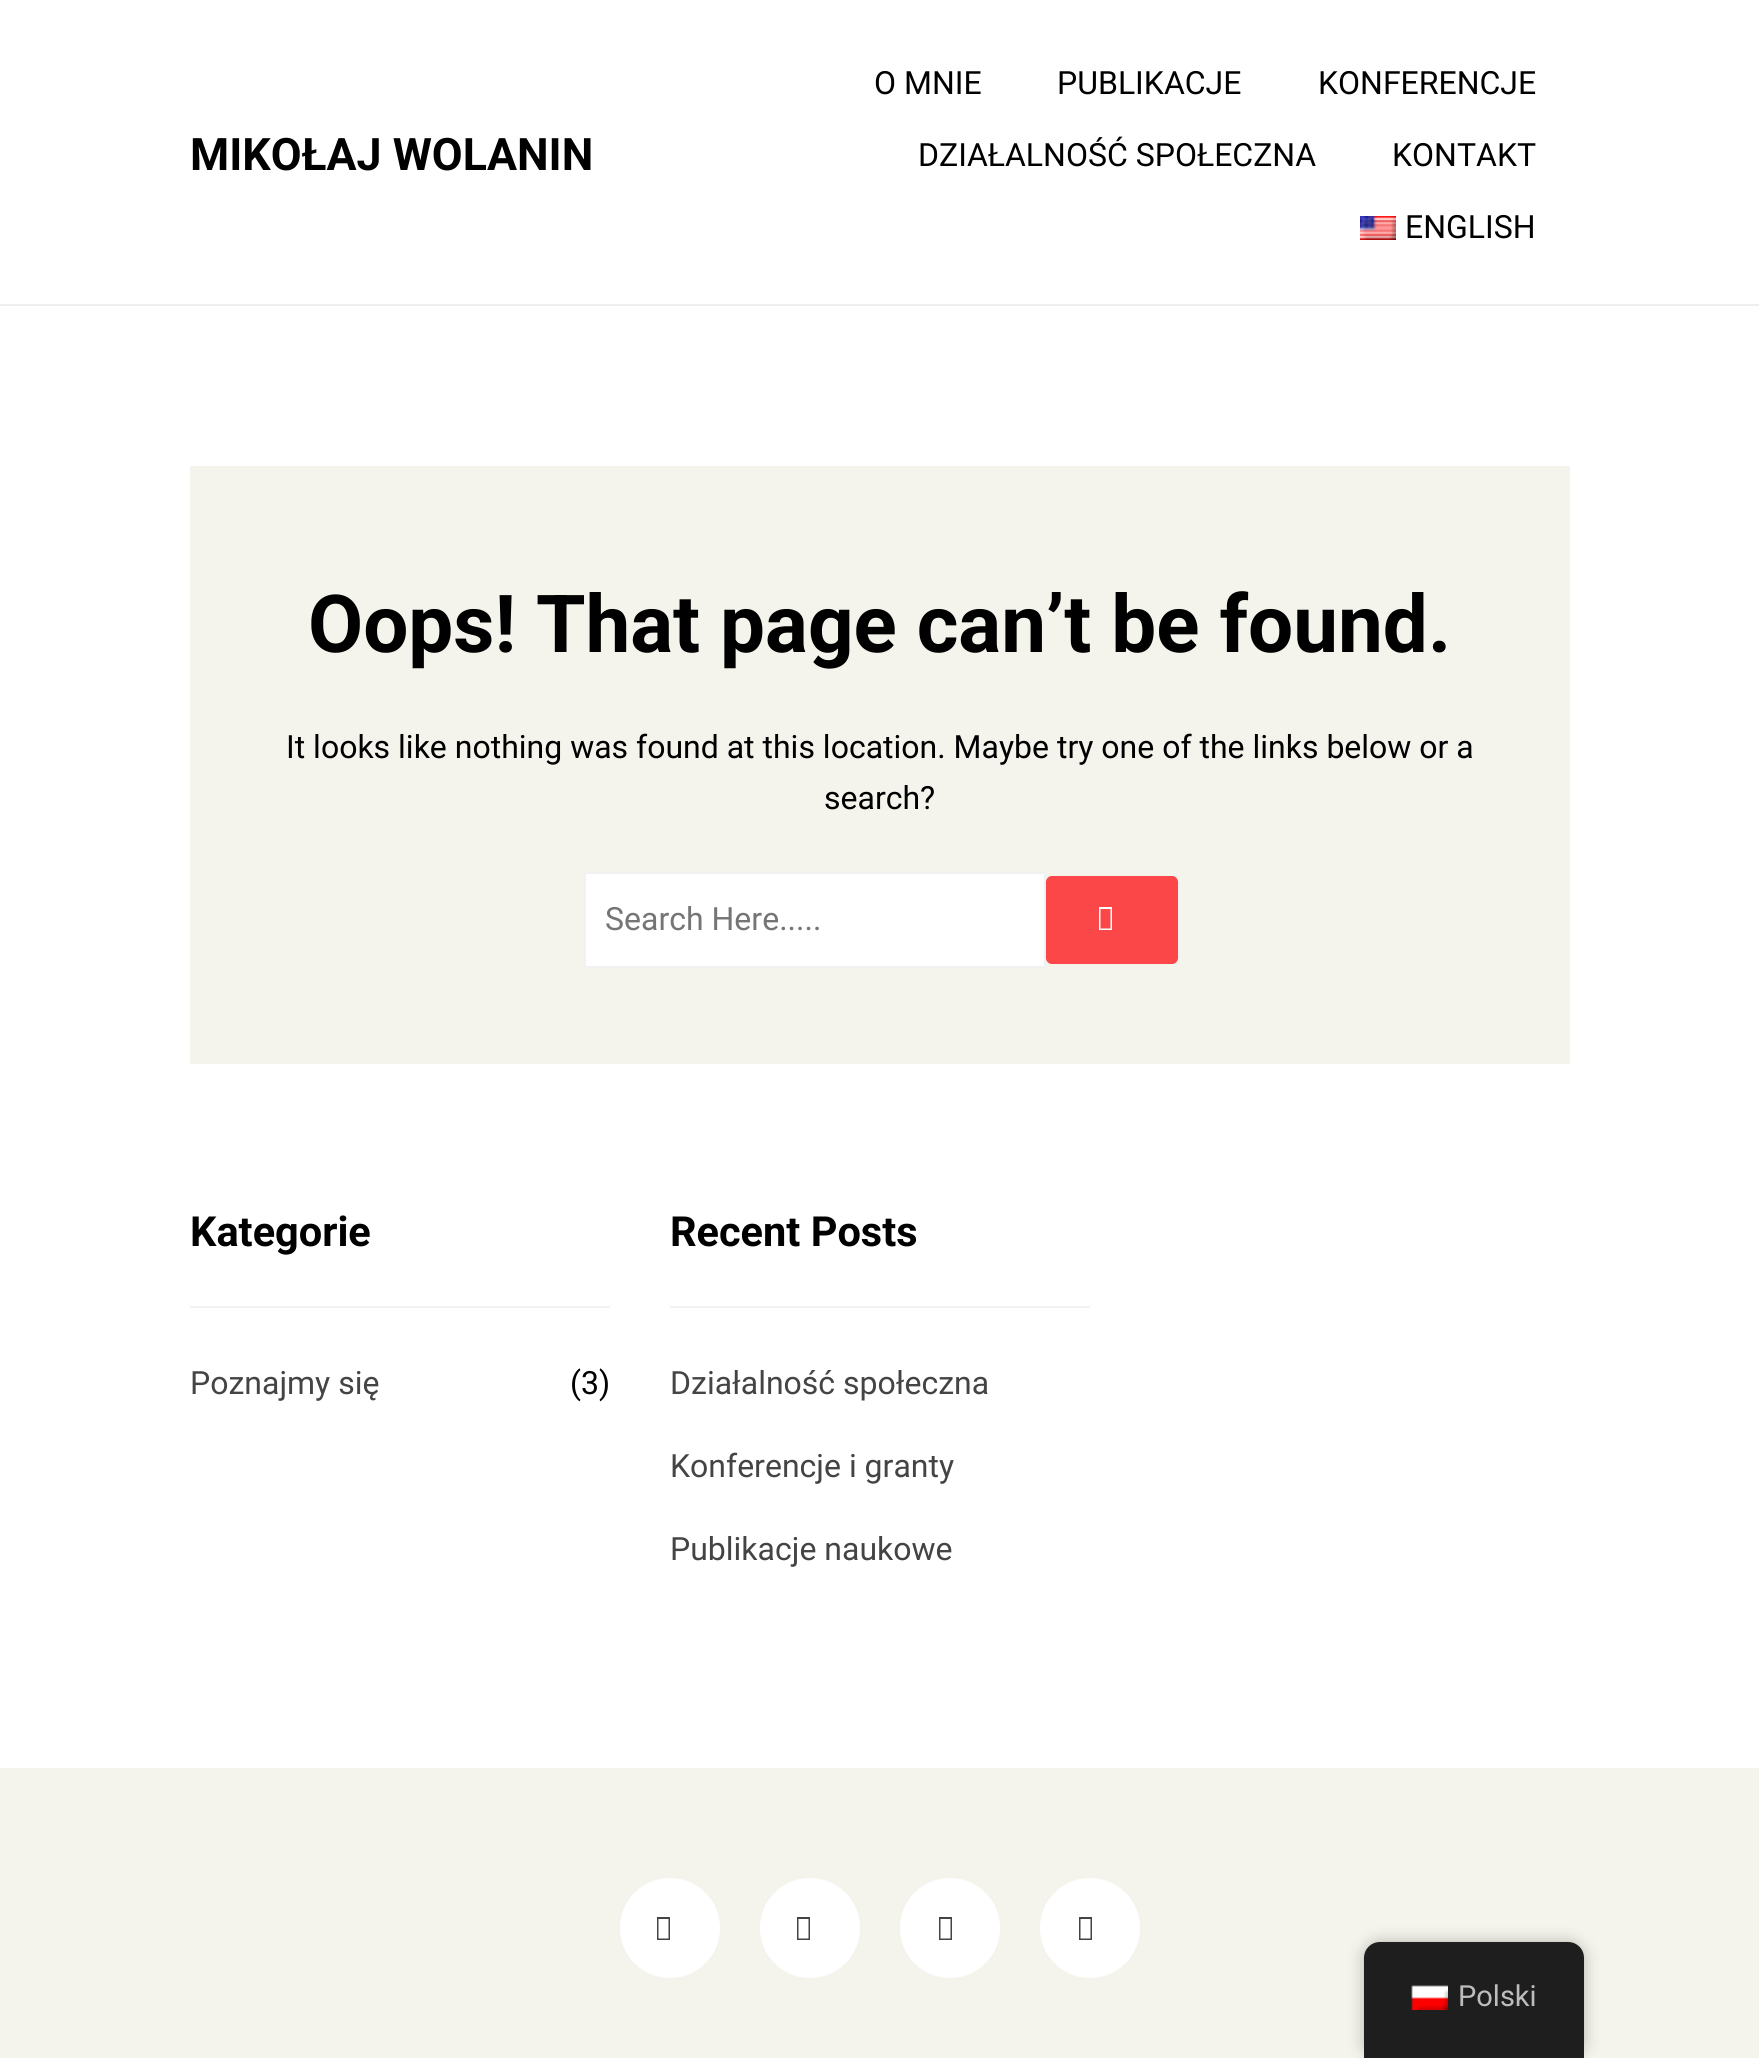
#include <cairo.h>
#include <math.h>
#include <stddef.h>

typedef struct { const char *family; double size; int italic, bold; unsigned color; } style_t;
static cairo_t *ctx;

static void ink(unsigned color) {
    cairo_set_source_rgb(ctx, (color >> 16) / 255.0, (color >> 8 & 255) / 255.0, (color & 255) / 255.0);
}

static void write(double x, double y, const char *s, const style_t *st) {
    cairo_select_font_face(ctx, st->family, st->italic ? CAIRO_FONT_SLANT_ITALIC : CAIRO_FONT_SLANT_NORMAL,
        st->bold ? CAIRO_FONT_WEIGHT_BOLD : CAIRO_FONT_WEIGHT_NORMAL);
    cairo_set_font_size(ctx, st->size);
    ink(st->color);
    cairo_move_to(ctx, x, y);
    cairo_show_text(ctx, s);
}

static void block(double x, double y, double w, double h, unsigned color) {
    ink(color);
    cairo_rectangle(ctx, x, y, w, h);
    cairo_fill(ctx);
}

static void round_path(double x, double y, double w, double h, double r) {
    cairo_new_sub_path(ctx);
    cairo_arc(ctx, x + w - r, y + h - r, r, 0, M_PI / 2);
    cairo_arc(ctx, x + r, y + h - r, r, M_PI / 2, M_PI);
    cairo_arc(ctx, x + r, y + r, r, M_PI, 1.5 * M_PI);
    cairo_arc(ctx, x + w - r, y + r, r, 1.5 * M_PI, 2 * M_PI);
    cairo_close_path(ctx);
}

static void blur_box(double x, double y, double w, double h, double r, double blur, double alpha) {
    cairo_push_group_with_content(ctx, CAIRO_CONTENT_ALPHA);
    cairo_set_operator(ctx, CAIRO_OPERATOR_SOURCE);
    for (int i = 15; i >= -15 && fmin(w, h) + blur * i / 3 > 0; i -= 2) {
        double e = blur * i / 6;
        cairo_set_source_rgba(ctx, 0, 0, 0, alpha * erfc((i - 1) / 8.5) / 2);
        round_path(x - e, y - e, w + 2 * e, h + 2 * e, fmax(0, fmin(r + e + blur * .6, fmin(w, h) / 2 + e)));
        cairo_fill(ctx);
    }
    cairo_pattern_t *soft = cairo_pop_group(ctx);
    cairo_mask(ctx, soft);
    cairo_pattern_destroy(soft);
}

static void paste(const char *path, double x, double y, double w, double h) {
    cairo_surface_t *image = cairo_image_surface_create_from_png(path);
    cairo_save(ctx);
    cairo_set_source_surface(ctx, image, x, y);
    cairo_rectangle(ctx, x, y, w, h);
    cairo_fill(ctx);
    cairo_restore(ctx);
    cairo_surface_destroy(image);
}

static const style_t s1 = {"Roboto", 44.75, 0, 1, 0x000000};
static const style_t s2 = {"Roboto", 32, 0, 0, 0x000000};
static const style_t s3 = {"Roboto", 80, 0, 1, 0x000000};
static const style_t s4 = {"Roboto", 32, 0, 0, 0x757575};
static const style_t s5 = {"Roboto", 41.5, 0, 1, 0x000000};
static const style_t s6 = {"Roboto", 32, 0, 0, 0x444444};
static const style_t s7 = {"Roboto", 29, 0, 0, 0xbdbdbd};

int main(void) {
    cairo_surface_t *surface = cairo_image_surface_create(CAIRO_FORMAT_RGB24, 1759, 2058);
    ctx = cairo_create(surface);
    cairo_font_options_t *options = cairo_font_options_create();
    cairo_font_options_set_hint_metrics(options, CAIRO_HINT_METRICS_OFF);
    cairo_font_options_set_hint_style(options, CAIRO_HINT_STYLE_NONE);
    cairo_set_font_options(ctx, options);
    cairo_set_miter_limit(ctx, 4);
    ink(0xffffff);
    cairo_paint(ctx);
    block(0, 304, 1759, 2, 0xeeeeee);
    write(190, 170, "MIKOŁAJ WOLANIN", &s1);
    write(874, 94, "O MNIE", &s2);
    write(1057, 94, "PUBLIKACJE", &s2);
    write(1318, 94, "KONFERENCJE", &s2);
    write(918, 166, "DZIAŁALNOŚĆ SPOŁECZNA", &s2);
    write(1392, 166, "KONTAKT", &s2);
    paste("pic1.png", 1360, 216, 36, 24);
    write(1405, 238, "ENGLISH", &s2);
    block(190, 466, 1380, 598, 0xf4f4ec);
    write(308, 652, "Oops! That page can’t be found.", &s3);
    write(286, 758, "It looks like nothing was found at this location. Maybe try one of the links below or a", &s2);
    write(824, 809, "search?", &s2);
    ink(0xffffff);
    cairo_rectangle(ctx, 585, 873, 460, 94);
    cairo_fill_preserve(ctx);
    ink(0xf1f1f1);
    cairo_stroke(ctx);
    write(605, 930, "Search Here.....", &s4);
    ink(0xfb4747);
    round_path(1047, 877, 130, 86, 5);
    cairo_fill_preserve(ctx);
    cairo_stroke(ctx);
    ink(0xffffff);
    cairo_new_path(ctx);
    cairo_move_to(ctx, 1099, 930);
    cairo_line_to(ctx, 1099, 907);
    cairo_line_to(ctx, 1112, 907);
    cairo_line_to(ctx, 1112, 930);
    cairo_close_path(ctx);
    cairo_move_to(ctx, 1100.5, 928.5);
    cairo_line_to(ctx, 1110.5, 928.5);
    cairo_line_to(ctx, 1110.5, 909);
    cairo_line_to(ctx, 1100.5, 909);
    cairo_close_path(ctx);
    cairo_fill(ctx);
    block(190, 1306, 420, 2, 0xf1f1f1);
    write(190, 1246, "Kategorie", &s5);
    write(190, 1394, "Poznajmy się", &s6);
    write(570, 1394, "(3)", &s2);
    block(670, 1306, 420, 2, 0xf1f1f1);
    write(670, 1246, "Recent Posts", &s5);
    write(670, 1394, "Działalność społeczna", &s6);
    write(670, 1477, "Konferencje i granty", &s6);
    write(670, 1560, "Publikacje naukowe", &s6);
    block(0, 1768, 1759, 290, 0xf4f4ec);
    ink(0xffffff);
    cairo_new_path(ctx);
    cairo_arc(ctx, 670, 1928, 50, 0, 2 * M_PI);
    cairo_fill(ctx);
    ink(0x444444);
    cairo_new_path(ctx);
    cairo_move_to(ctx, 657, 1940);
    cairo_line_to(ctx, 657, 1917);
    cairo_line_to(ctx, 670, 1917);
    cairo_line_to(ctx, 670, 1940);
    cairo_close_path(ctx);
    cairo_move_to(ctx, 658.5, 1938.5);
    cairo_line_to(ctx, 668.5, 1938.5);
    cairo_line_to(ctx, 668.5, 1919);
    cairo_line_to(ctx, 658.5, 1919);
    cairo_close_path(ctx);
    cairo_fill(ctx);
    ink(0xffffff);
    cairo_arc(ctx, 810, 1928, 50, 0, 2 * M_PI);
    cairo_fill(ctx);
    ink(0x444444);
    cairo_new_path(ctx);
    cairo_move_to(ctx, 797, 1940);
    cairo_line_to(ctx, 797, 1917);
    cairo_line_to(ctx, 810, 1917);
    cairo_line_to(ctx, 810, 1940);
    cairo_close_path(ctx);
    cairo_move_to(ctx, 798.5, 1938.5);
    cairo_line_to(ctx, 808.5, 1938.5);
    cairo_line_to(ctx, 808.5, 1919);
    cairo_line_to(ctx, 798.5, 1919);
    cairo_close_path(ctx);
    cairo_fill(ctx);
    ink(0xffffff);
    cairo_arc(ctx, 950, 1928, 50, 0, 2 * M_PI);
    cairo_fill(ctx);
    ink(0x444444);
    cairo_new_path(ctx);
    cairo_move_to(ctx, 939, 1940);
    cairo_line_to(ctx, 939, 1917);
    cairo_line_to(ctx, 952, 1917);
    cairo_line_to(ctx, 952, 1940);
    cairo_close_path(ctx);
    cairo_move_to(ctx, 940.5, 1938.5);
    cairo_line_to(ctx, 950.5, 1938.5);
    cairo_line_to(ctx, 950.5, 1919);
    cairo_line_to(ctx, 940.5, 1919);
    cairo_close_path(ctx);
    cairo_fill(ctx);
    ink(0xffffff);
    cairo_arc(ctx, 1090, 1928, 50, 0, 2 * M_PI);
    cairo_fill(ctx);
    ink(0x444444);
    cairo_new_path(ctx);
    cairo_move_to(ctx, 1079, 1940);
    cairo_line_to(ctx, 1079, 1917);
    cairo_line_to(ctx, 1092, 1917);
    cairo_line_to(ctx, 1092, 1940);
    cairo_close_path(ctx);
    cairo_move_to(ctx, 1080.5, 1938.5);
    cairo_line_to(ctx, 1090.5, 1938.5);
    cairo_line_to(ctx, 1090.5, 1919);
    cairo_line_to(ctx, 1080.5, 1919);
    cairo_close_path(ctx);
    cairo_fill(ctx);
    ink(0x000000);
    blur_box(1364, 1942, 220, 116, 16, 8, 0.25);
    ink(0x1e1e1e);
    cairo_new_path(ctx);
    cairo_move_to(ctx, 1380, 1942);
    cairo_line_to(ctx, 1568, 1942);
    cairo_curve_to(ctx, 1577, 1942, 1584, 1949, 1584, 1958);
    cairo_line_to(ctx, 1584, 2058);
    cairo_line_to(ctx, 1364, 2058);
    cairo_line_to(ctx, 1364, 1958);
    cairo_curve_to(ctx, 1364, 1949, 1371, 1942, 1380, 1942);
    cairo_close_path(ctx);
    cairo_fill(ctx);
    paste("pic2.png", 1411, 1985, 37, 25);
    write(1458, 2006, "Polski", &s7);
    cairo_surface_write_to_png(surface, "screenshot.png");
    cairo_font_options_destroy(options);
    cairo_destroy(ctx);
    cairo_surface_destroy(surface);
    return 0;
}
